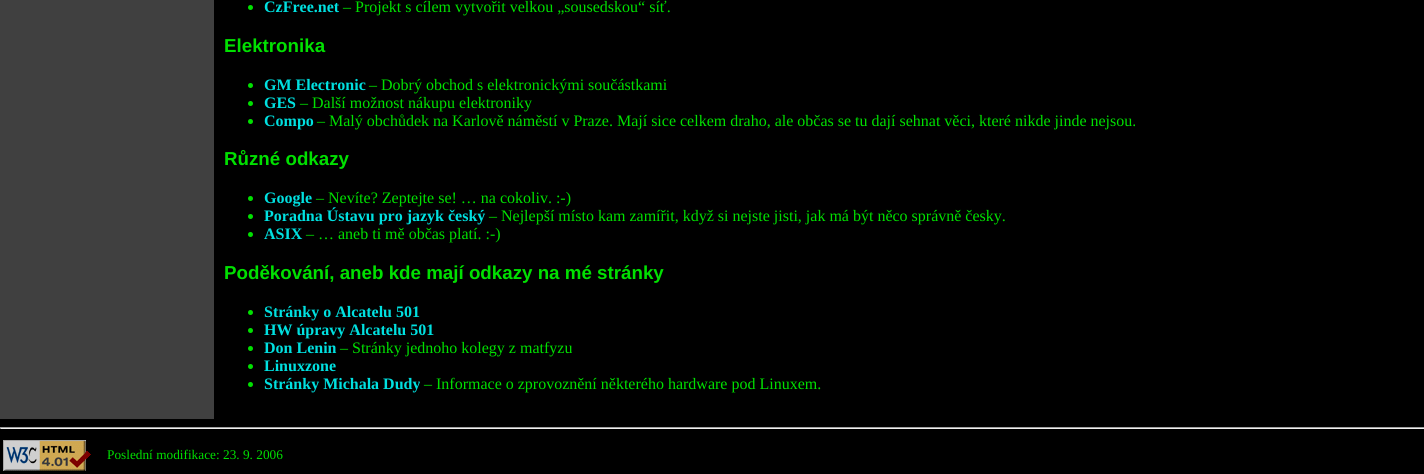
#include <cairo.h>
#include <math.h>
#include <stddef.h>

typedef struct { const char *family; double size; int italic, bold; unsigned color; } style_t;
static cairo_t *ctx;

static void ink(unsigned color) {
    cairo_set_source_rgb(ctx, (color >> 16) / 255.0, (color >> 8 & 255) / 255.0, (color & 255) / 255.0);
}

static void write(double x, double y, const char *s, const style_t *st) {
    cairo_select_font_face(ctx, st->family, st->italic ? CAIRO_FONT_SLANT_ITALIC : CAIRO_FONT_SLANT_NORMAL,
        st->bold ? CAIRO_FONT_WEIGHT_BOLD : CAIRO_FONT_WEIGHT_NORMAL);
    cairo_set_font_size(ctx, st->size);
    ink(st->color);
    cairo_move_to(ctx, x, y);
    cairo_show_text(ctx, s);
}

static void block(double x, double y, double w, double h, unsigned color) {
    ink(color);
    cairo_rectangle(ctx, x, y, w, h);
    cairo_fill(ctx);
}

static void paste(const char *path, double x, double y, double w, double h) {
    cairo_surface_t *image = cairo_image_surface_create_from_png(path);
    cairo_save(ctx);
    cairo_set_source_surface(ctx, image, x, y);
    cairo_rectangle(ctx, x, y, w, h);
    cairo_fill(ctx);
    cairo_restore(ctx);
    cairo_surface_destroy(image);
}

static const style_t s1 = {"Liberation Serif", 16, 0, 1, 0x00e0e0};
static const style_t s2 = {"Liberation Serif", 16, 0, 0, 0x00e000};
static const style_t s3 = {"Liberation Sans", 18.75, 0, 1, 0x00e000};
static const style_t s4 = {"Liberation Serif", 13.3, 0, 0, 0x00e000};

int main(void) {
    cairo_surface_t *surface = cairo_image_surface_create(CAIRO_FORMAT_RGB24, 1424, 474);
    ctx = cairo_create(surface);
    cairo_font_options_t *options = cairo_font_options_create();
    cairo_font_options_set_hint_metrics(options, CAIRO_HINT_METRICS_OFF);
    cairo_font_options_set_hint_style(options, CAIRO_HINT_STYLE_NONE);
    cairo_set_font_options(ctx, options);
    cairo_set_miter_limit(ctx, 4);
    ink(0x000000);
    cairo_paint(ctx);
    block(0, 0, 214, 419, 0x404040);
    ink(0x00e000);
    cairo_arc(ctx, 250.5, 7.5, 2.5, 0, 2 * M_PI);
    cairo_fill(ctx);
    write(264, 12, "CzFree.net", &s1);
    write(343, 12, "– Projekt s cílem vytvořit velkou „sousedskou“ síť.", &s2);
    write(224, 52, "Elektronika", &s3);
    cairo_new_path(ctx);
    cairo_arc(ctx, 250.5, 85.5, 2.5, 0, 2 * M_PI);
    cairo_fill(ctx);
    write(264, 90, "GM Electronic", &s1);
    write(369, 90, "– Dobrý obchod s elektronickými součástkami", &s2);
    cairo_new_path(ctx);
    cairo_arc(ctx, 250.5, 103.5, 2.5, 0, 2 * M_PI);
    cairo_fill(ctx);
    write(264, 108, "GES", &s1);
    write(300, 108, "– Další možnost nákupu elektroniky", &s2);
    cairo_new_path(ctx);
    cairo_arc(ctx, 250.5, 121.5, 2.5, 0, 2 * M_PI);
    cairo_fill(ctx);
    write(264, 126, "Compo", &s1);
    write(317, 126, "– Malý obchůdek na Karlově náměstí v Praze. Mají sice celkem draho, ale občas se tu dají sehnat věci, které nikde jinde nejsou.", &s2);
    write(224, 165, "Různé odkazy", &s3);
    cairo_new_path(ctx);
    cairo_arc(ctx, 250.5, 198.5, 2.5, 0, 2 * M_PI);
    cairo_fill(ctx);
    write(264, 203, "Google", &s1);
    write(316, 203, "– Nevíte? Zeptejte se! … na cokoliv. :-)", &s2);
    cairo_new_path(ctx);
    cairo_arc(ctx, 250.5, 216.5, 2.5, 0, 2 * M_PI);
    cairo_fill(ctx);
    write(264, 221, "Poradna Ústavu pro jazyk český", &s1);
    write(489, 221, "– Nejlepší místo kam zamířit, když si nejste jisti, jak má být něco správně česky.", &s2);
    cairo_new_path(ctx);
    cairo_arc(ctx, 250.5, 234.5, 2.5, 0, 2 * M_PI);
    cairo_fill(ctx);
    write(264, 239, "ASIX", &s1);
    write(306, 239, "– … aneb ti mě občas platí. :-)", &s2);
    write(224, 279, "Poděkování, aneb kde mají odkazy na mé stránky", &s3);
    cairo_new_path(ctx);
    cairo_arc(ctx, 250.5, 312.5, 2.5, 0, 2 * M_PI);
    cairo_fill(ctx);
    write(264, 317, "Stránky o Alcatelu 501", &s1);
    ink(0x00e000);
    cairo_new_path(ctx);
    cairo_arc(ctx, 250.5, 330.5, 2.5, 0, 2 * M_PI);
    cairo_fill(ctx);
    write(264, 335, "HW úpravy Alcatelu 501", &s1);
    ink(0x00e000);
    cairo_new_path(ctx);
    cairo_arc(ctx, 250.5, 348.5, 2.5, 0, 2 * M_PI);
    cairo_fill(ctx);
    write(264, 353, "Don Lenin", &s1);
    write(340, 353, "– Stránky jednoho kolegy z matfyzu", &s2);
    cairo_new_path(ctx);
    cairo_arc(ctx, 250.5, 366.5, 2.5, 0, 2 * M_PI);
    cairo_fill(ctx);
    write(264, 371, "Linuxzone", &s1);
    ink(0x00e000);
    cairo_new_path(ctx);
    cairo_arc(ctx, 250.5, 384.5, 2.5, 0, 2 * M_PI);
    cairo_fill(ctx);
    write(264, 389, "Stránky Michala Dudy", &s1);
    write(424, 389, "– Informace o zprovoznění některého hardware pod Linuxem.", &s2);
    block(0, 427, 1424, 1, 0x9f9f9f);
    block(0, 428, 1424, 1, 0xeeeeee);
    block(0, 427, 1, 2, 0x9f9f9f);
    paste("pic1.png", 3, 440, 88, 31);
    write(107, 459, "Poslední modifikace: 23. 9. 2006", &s4);
    cairo_surface_write_to_png(surface, "screenshot.png");
    cairo_font_options_destroy(options);
    cairo_destroy(ctx);
    cairo_surface_destroy(surface);
    return 0;
}
